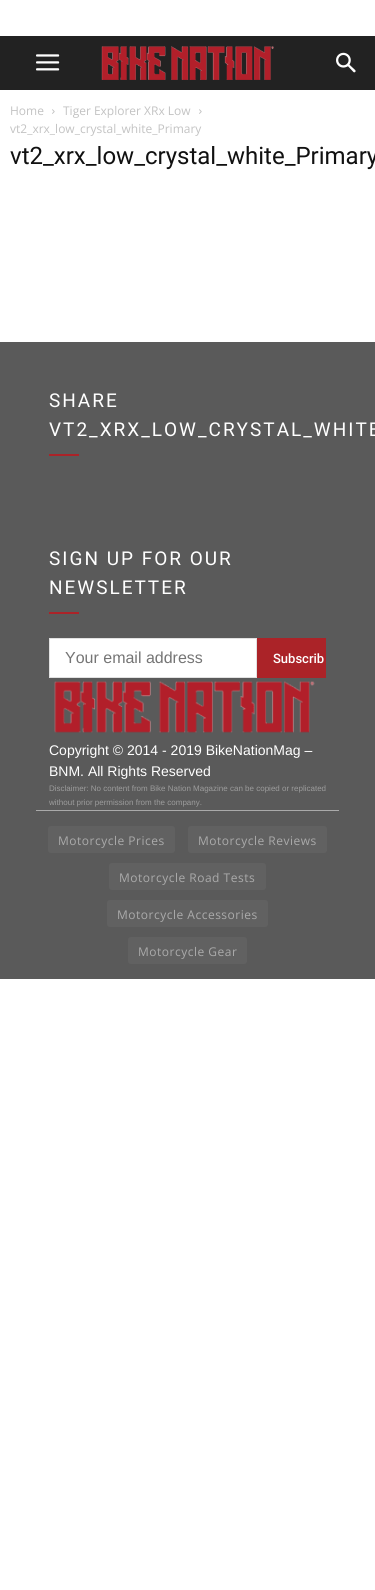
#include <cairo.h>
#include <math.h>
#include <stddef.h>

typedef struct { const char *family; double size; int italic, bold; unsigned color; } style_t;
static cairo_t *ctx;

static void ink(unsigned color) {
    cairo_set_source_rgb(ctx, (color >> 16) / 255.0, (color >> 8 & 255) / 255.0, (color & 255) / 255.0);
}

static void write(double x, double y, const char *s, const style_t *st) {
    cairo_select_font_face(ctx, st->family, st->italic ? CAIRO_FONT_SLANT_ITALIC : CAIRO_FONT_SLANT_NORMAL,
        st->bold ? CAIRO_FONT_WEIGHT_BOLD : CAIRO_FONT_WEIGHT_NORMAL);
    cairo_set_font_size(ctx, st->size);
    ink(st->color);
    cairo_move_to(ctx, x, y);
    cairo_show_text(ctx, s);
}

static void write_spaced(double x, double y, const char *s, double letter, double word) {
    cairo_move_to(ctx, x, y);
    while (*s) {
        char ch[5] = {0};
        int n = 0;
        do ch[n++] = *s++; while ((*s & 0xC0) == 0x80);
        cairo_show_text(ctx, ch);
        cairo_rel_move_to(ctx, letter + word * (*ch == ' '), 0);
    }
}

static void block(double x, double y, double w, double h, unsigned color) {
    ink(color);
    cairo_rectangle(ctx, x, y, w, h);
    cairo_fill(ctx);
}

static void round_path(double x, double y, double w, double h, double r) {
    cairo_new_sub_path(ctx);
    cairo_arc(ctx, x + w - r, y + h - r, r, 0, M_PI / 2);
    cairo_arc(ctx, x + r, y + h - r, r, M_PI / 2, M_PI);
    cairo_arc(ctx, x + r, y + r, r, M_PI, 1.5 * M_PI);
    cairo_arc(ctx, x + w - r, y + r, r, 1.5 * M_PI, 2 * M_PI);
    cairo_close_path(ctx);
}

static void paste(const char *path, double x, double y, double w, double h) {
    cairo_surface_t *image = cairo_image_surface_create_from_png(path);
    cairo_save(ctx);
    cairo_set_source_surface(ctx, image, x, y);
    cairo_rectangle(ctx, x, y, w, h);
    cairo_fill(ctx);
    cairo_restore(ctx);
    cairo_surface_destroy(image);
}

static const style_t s1 = {"Open Sans", 12, 0, 0, 0xc3c3c3};
static const style_t s2 = {"Roboto", 24, 0, 0, 0x111111};
static const style_t s3 = {"Liberation Sans", 16, 0, 0, 0x757575};
static const style_t s4 = {"Roboto Medium", 13, 0, 0, 0xffffff};
static const style_t s5 = {"Liberation Sans", 14, 0, 0, 0xffffff};
static const style_t s6 = {"Liberation Sans", 8, 0, 0, 0x9c9c9c};

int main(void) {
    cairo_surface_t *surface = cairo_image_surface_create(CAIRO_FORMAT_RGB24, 375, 1590);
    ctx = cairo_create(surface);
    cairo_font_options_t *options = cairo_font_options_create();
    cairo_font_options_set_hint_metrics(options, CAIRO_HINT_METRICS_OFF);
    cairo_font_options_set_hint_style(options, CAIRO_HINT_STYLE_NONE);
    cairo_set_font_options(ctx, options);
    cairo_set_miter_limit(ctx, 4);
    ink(0xffffff);
    cairo_paint(ctx);
    block(0, 36, 375, 54, 0x222222);
    paste("pic1.png", 36, 54, 24, 17);
    paste("pic2.png", 101, 46, 173, 34);
    paste("pic3.png", 336, 52, 20, 21);
    write(10, 115, "Home", &s1);
    paste("pic4.png", 52, 109, 3, 5);
    write(63, 115, "Tiger Explorer XRx Low", &s1);
    paste("pic4.png", 199, 109, 3, 5);
    write(10, 133, "vt2_xrx_low_crystal_white_Primary", &s1);
    write(10, 164, "vt2_xrx_low_crystal_white_Primary", &s2);
    block(0, 342, 375, 637, 0x5a5a5a);
    cairo_set_font_size(ctx, 19);
    ink(0xffffff);
    write_spaced(49, 407, "SHARE", 2, 0);
    write_spaced(49, 436, "VT2_XRX_LOW_CRYSTAL_WHITE", 2, 0);
    block(49, 454, 30, 2, 0xab2328);
    ink(0xffffff);
    write_spaced(49, 565, "SIGN UP FOR OUR", 2, 0);
    write_spaced(49, 594, "NEWSLETTER", 2, 0);
    block(49, 612, 30, 2, 0xab2328);
    ink(0xffffff);
    cairo_rectangle(ctx, 49.5, 638.5, 207, 39);
    cairo_fill_preserve(ctx);
    ink(0xe1e1e1);
    cairo_set_line_width(ctx, 1);
    cairo_stroke(ctx);
    write(65, 663, "Your email address", &s3);
    block(257, 638, 69, 40, 0xab2328);
    write(273, 663, "Subscrib", &s4);
    paste("pic5.png", 54, 681, 261, 52);
    write(49, 755, "Copyright © 2014 - 2019 BikeNationMag –", &s5);
    write(49, 776, "BNM. All Rights Reserved", &s5);
    write(49, 791, "Disclaimer: No content from Bike Nation Magazine can be copied or replicated", &s6);
    write(49, 805, "without prior permission from the company.", &s6);
    block(36, 810, 303, 1, 0xaaaaaa);
    ink(0x616161);
    round_path(48, 826, 127, 27, 3);
    cairo_fill(ctx);
    cairo_select_font_face(ctx, "Open Sans", CAIRO_FONT_SLANT_NORMAL, CAIRO_FONT_WEIGHT_NORMAL);
    cairo_set_font_size(ctx, 12);
    ink(0xaaaaaa);
    write_spaced(58, 845, "Motorcycle Prices", 0.5, 0);
    ink(0x616161);
    round_path(188, 826, 139, 27, 3);
    cairo_fill(ctx);
    ink(0xaaaaaa);
    write_spaced(198, 845, "Motorcycle Reviews", 0.5, 0);
    ink(0x616161);
    round_path(109, 863, 157, 27, 3);
    cairo_fill(ctx);
    ink(0xaaaaaa);
    write_spaced(119, 882, "Motorcycle Road Tests", 0.5, 0);
    ink(0x616161);
    round_path(107, 900, 161, 27, 3);
    cairo_fill(ctx);
    ink(0xaaaaaa);
    write_spaced(117, 919, "Motorcycle Accessories", 0.5, 0);
    ink(0x616161);
    round_path(128, 937, 119, 27, 3);
    cairo_fill(ctx);
    ink(0xaaaaaa);
    write_spaced(138, 956, "Motorcycle Gear", 0.5, 0);
    cairo_surface_write_to_png(surface, "screenshot.png");
    cairo_font_options_destroy(options);
    cairo_destroy(ctx);
    cairo_surface_destroy(surface);
    return 0;
}
